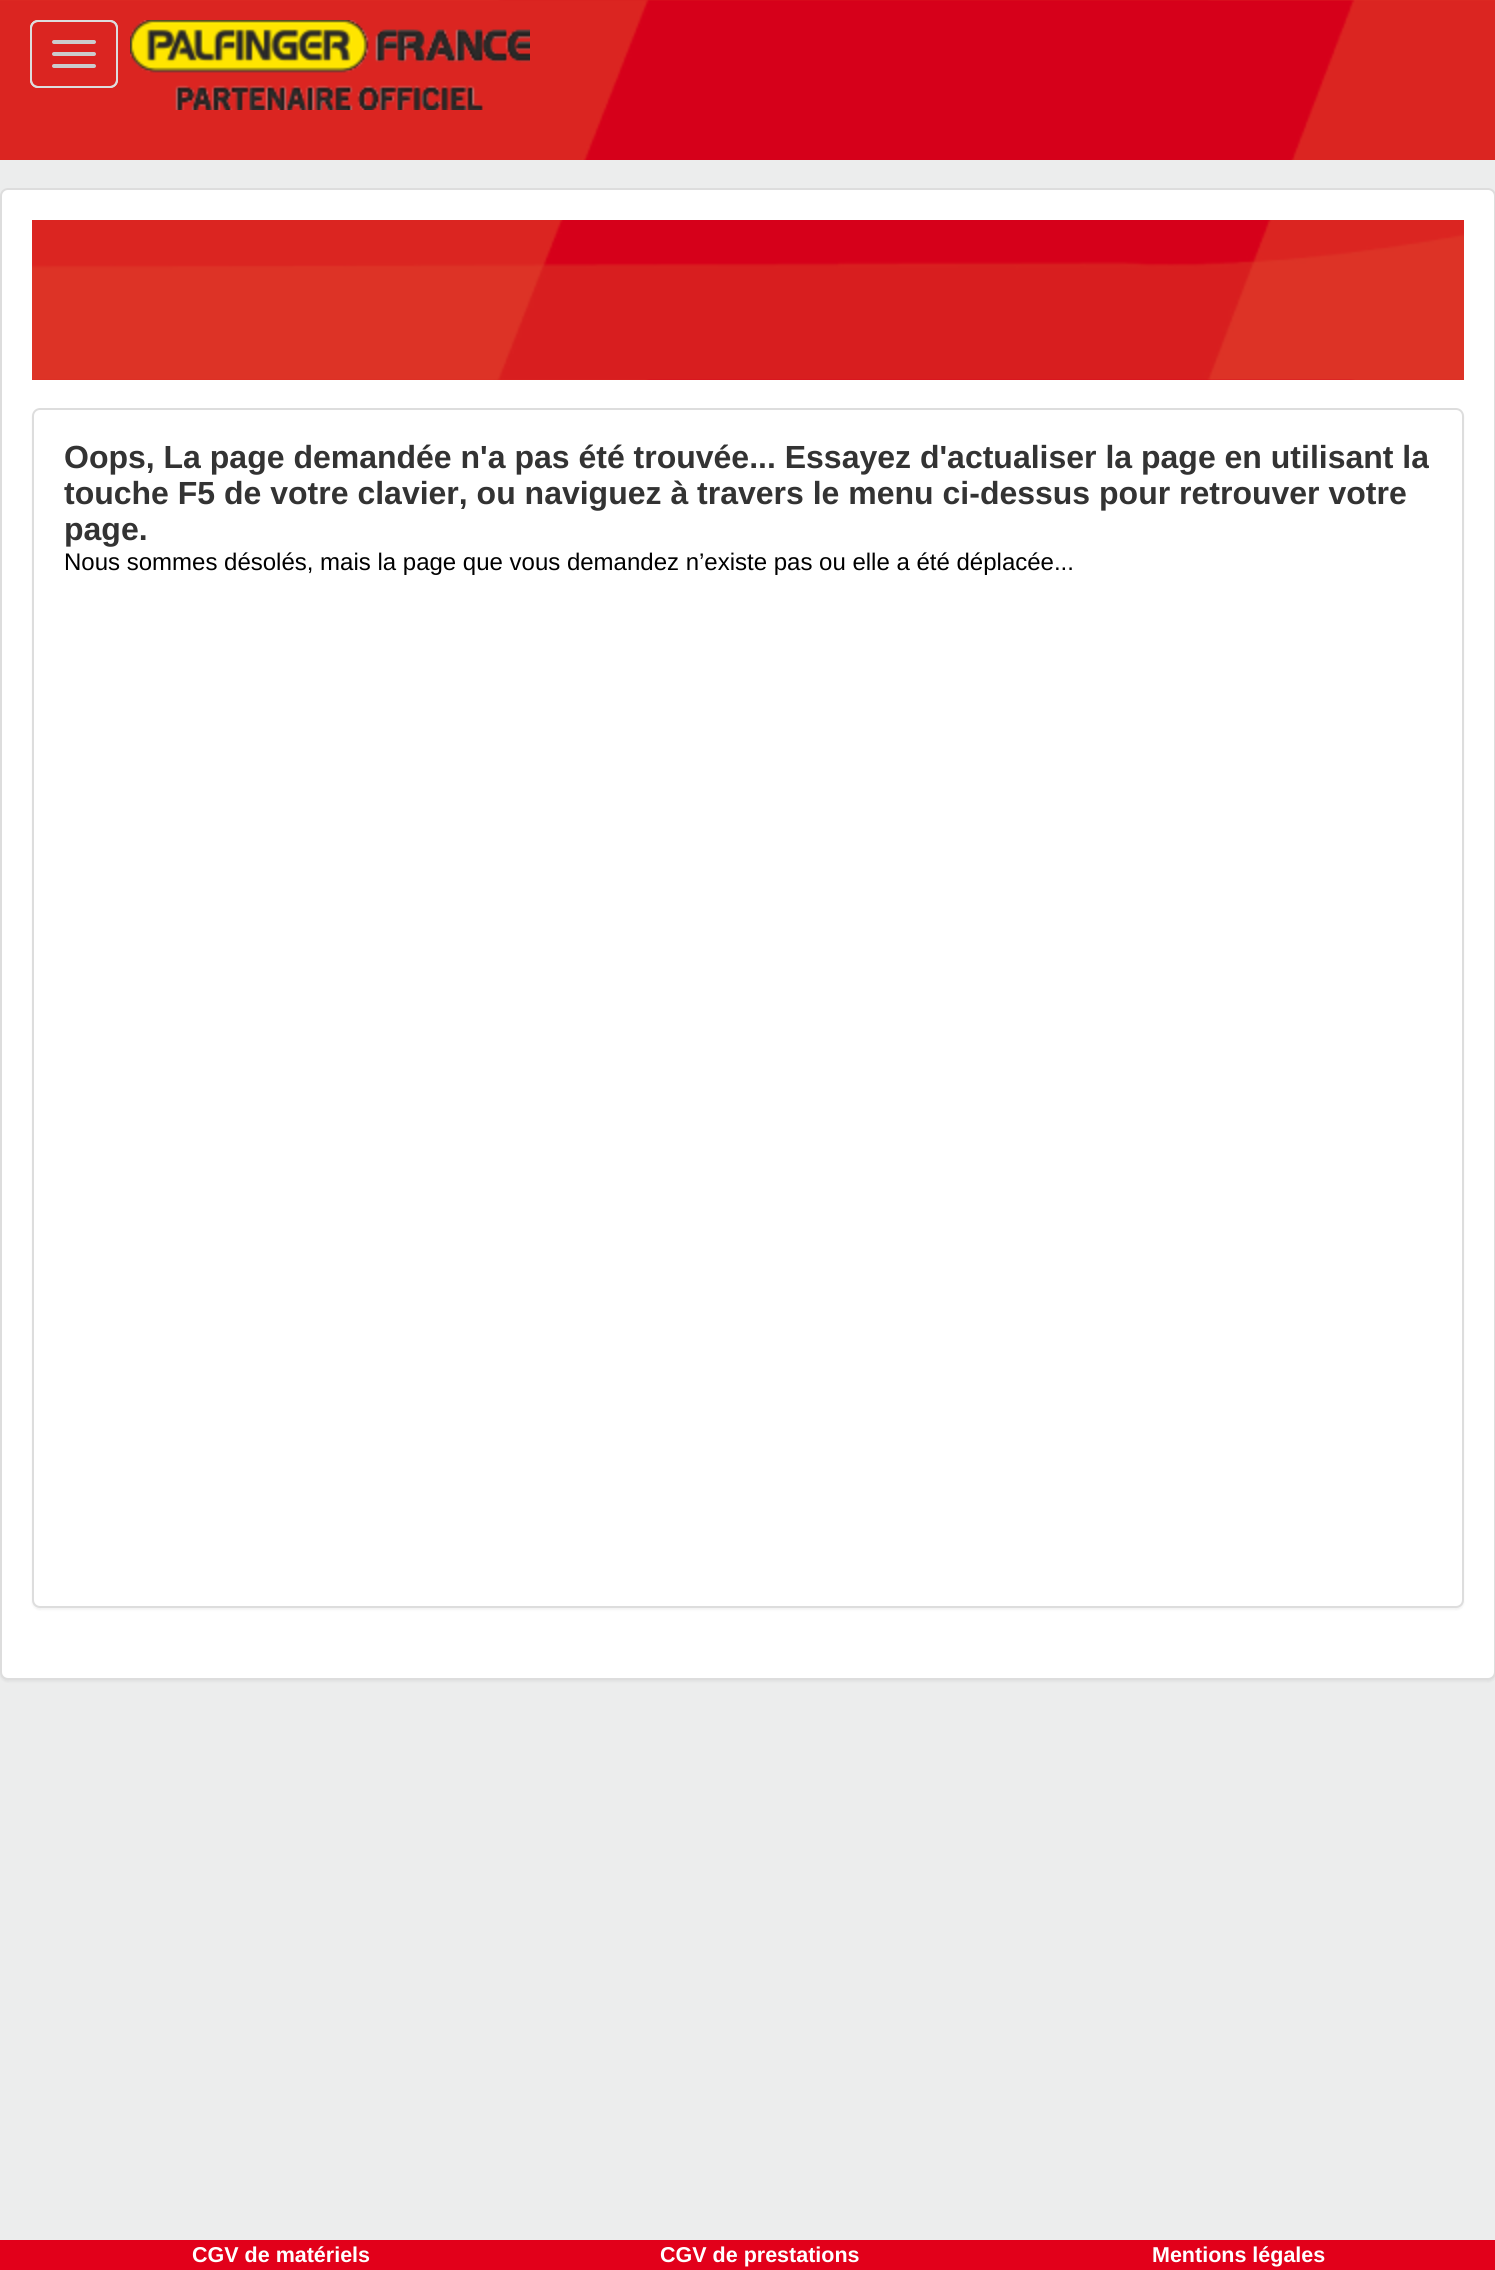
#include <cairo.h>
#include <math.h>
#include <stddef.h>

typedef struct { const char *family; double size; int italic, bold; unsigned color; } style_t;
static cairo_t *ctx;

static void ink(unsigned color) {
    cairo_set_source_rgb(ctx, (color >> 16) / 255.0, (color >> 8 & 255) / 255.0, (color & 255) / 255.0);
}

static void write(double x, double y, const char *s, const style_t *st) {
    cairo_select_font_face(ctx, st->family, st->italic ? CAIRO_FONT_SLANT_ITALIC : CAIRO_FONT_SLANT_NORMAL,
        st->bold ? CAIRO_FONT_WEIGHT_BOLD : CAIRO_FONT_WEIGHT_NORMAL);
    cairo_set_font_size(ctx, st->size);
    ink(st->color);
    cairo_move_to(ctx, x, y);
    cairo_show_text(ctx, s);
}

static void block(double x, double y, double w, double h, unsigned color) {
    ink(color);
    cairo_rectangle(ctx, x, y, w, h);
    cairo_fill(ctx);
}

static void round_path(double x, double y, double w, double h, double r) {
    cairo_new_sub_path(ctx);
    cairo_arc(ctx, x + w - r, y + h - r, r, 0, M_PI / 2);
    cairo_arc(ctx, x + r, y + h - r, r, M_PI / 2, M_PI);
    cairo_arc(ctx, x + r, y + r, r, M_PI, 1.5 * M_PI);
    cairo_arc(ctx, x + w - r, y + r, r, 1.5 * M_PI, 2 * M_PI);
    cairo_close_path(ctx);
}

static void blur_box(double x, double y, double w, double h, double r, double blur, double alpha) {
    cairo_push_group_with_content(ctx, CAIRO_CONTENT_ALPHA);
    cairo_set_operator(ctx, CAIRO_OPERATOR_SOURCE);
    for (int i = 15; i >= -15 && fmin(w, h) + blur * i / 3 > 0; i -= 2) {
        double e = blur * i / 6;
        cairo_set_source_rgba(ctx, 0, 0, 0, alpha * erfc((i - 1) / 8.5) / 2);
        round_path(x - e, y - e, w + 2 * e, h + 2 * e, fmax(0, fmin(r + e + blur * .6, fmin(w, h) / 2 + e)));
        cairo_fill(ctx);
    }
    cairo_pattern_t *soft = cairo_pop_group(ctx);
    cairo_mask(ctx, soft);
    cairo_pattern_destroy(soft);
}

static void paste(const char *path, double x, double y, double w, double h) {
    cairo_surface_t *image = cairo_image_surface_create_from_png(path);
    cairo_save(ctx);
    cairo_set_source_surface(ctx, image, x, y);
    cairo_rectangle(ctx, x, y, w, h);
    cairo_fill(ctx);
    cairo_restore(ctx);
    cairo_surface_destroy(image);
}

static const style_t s1 = {"Liberation Sans", 32, 0, 1, 0x333333};
static const style_t s2 = {"Liberation Sans", 24, 0, 0, 0x000000};
static const style_t s3 = {"Liberation Sans", 21.5, 0, 1, 0xffffff};

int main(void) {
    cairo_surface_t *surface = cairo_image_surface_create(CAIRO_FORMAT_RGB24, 1495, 2270);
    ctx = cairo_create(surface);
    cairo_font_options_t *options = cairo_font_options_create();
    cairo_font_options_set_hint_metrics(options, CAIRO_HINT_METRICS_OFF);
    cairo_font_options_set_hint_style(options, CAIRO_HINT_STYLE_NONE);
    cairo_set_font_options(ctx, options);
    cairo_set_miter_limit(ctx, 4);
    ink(0xeceded);
    cairo_paint(ctx);
    paste("pic1.png", 0, 0, 1495, 160);
    paste("pic2.png", 130, 20, 400, 90);
    round_path(31, 21, 86, 66, 7);
    ink(0xdddddd);
    cairo_stroke(ctx);
    ink(0x000000);
    blur_box(0, 190, 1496, 1492, 8, 1, 0.05);
    ink(0xffffff);
    round_path(1, 189, 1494, 1490, 7);
    cairo_fill_preserve(ctx);
    ink(0xdddddd);
    cairo_stroke(ctx);
    round_path(31, 21, 86, 66, 7);
    cairo_stroke(ctx);
    ink(0xcccccc);
    round_path(52, 40, 44, 4, 2);
    cairo_fill(ctx);
    round_path(52, 52, 44, 4, 2);
    cairo_fill(ctx);
    round_path(52, 64, 44, 4, 2);
    cairo_fill(ctx);
    paste("pic3.png", 32, 220, 1432, 160);
    paste("pic4.png", 130, 20, 400, 90);
    ink(0x000000);
    blur_box(32, 410, 1432, 1200, 8, 1, 0.05);
    ink(0xffffff);
    round_path(33, 409, 1430, 1198, 7);
    cairo_fill_preserve(ctx);
    ink(0xdddddd);
    cairo_stroke(ctx);
    write(64, 468, "Oops, La page demandée n'a pas été trouvée... Essayez d'actualiser la page en utilisant la", &s1);
    write(64, 504, "touche F5 de votre clavier, ou naviguez à travers le menu ci-dessus pour retrouver votre", &s1);
    write(64, 540, "page.", &s1);
    write(64, 570, "Nous sommes désolés, mais la page que vous demandez n’existe pas ou elle a été déplacée...", &s2);
    block(0, 2240, 1495, 30, 0xe2001a);
    write(192, 2262, "CGV de matériels", &s3);
    write(660, 2262, "CGV de prestations", &s3);
    write(1152, 2262, "Mentions légales", &s3);
    cairo_surface_write_to_png(surface, "screenshot.png");
    cairo_font_options_destroy(options);
    cairo_destroy(ctx);
    cairo_surface_destroy(surface);
    return 0;
}
